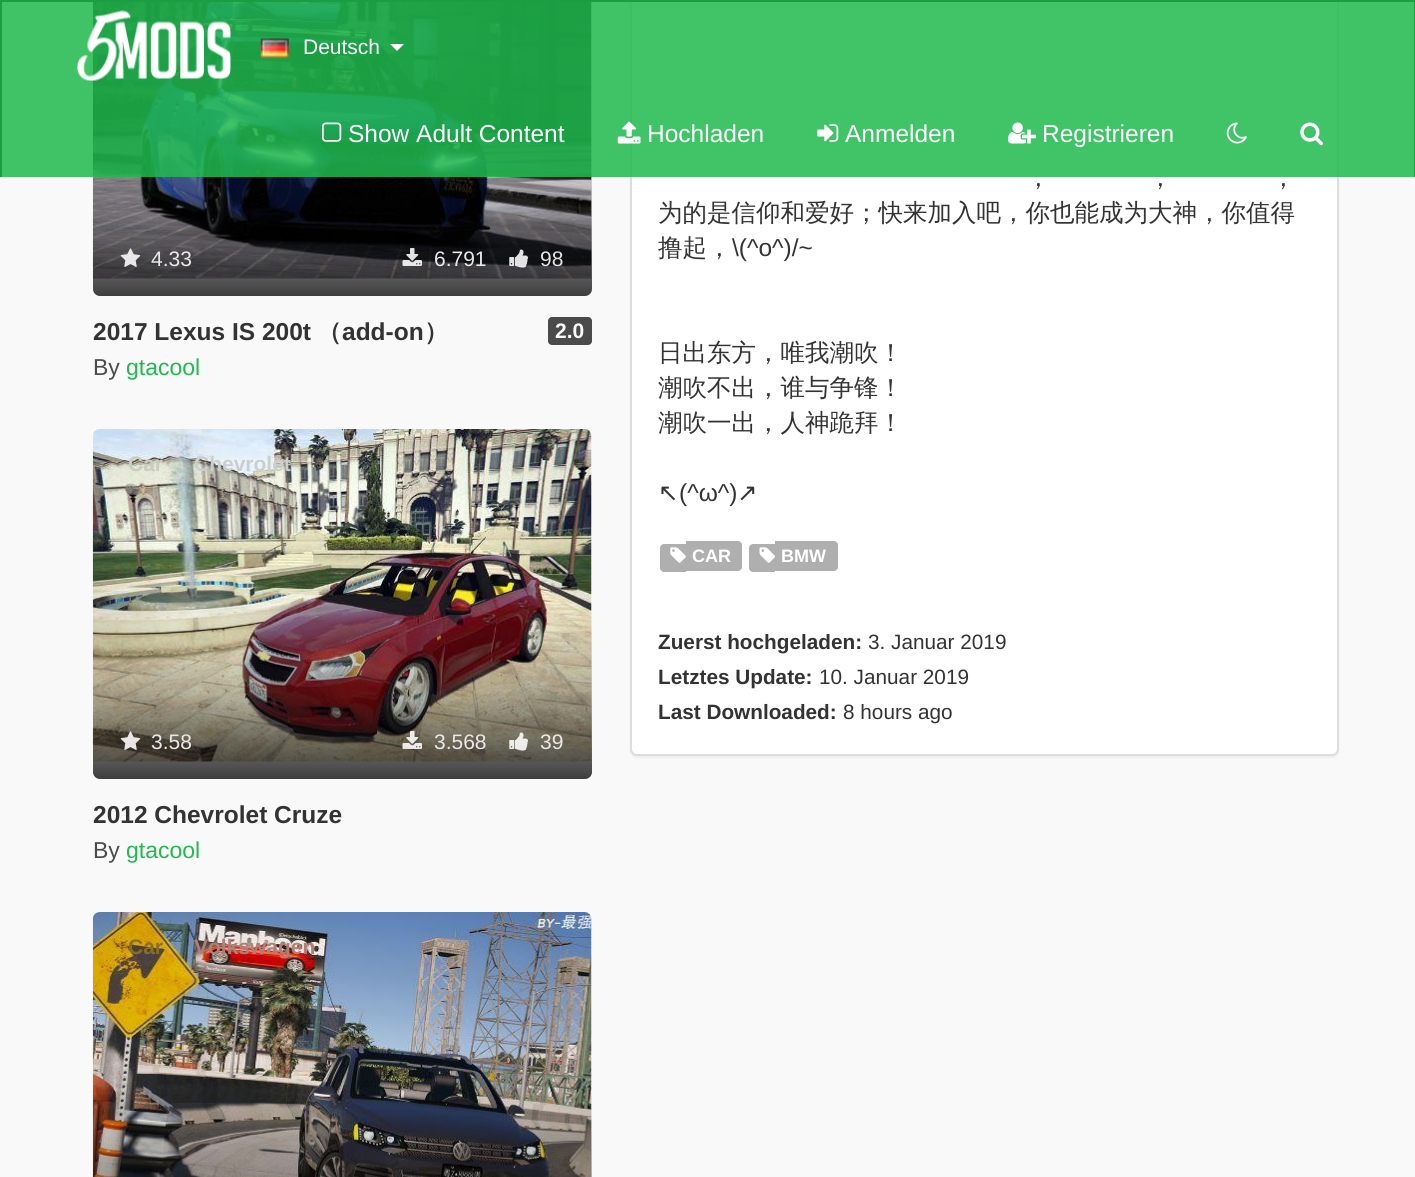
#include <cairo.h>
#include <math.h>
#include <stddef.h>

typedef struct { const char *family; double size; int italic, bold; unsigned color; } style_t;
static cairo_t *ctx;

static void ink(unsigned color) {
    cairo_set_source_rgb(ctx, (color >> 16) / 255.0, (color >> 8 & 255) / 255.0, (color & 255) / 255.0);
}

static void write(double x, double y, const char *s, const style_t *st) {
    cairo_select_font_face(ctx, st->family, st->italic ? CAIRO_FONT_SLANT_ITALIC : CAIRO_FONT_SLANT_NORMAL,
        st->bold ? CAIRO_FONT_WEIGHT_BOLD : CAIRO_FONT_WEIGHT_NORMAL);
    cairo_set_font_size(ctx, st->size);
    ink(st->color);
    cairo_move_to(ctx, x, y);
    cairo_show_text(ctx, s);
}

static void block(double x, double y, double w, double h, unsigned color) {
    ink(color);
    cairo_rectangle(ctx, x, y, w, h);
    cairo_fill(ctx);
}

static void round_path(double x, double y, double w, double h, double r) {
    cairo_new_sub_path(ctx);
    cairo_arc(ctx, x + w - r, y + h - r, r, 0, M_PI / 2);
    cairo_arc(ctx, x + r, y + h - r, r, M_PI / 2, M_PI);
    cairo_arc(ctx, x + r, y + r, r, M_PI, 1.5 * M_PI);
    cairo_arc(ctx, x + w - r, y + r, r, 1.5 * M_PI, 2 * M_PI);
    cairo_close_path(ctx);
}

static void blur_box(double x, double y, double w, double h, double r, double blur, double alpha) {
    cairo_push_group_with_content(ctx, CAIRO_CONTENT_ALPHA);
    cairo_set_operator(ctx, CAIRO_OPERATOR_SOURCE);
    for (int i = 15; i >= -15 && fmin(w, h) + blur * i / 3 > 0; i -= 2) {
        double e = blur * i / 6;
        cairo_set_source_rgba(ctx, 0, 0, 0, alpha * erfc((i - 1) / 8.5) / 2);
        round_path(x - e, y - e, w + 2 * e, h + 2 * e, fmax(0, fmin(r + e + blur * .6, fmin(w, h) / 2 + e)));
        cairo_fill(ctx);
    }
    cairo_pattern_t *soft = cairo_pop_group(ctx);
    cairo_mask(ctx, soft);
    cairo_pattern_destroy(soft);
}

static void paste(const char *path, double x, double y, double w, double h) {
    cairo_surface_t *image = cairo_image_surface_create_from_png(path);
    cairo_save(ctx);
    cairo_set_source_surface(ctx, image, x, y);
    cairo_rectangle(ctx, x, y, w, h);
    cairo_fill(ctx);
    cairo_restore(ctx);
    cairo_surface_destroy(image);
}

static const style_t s1 = {"Liberation Sans", 21, 0, 0, 0xffffff};
static const style_t s2 = {"Liberation Sans", 24.5, 0, 0, 0xffffff};
static const style_t s3 = {"Liberation Sans", 21, 0, 0, 0xe9e9e9};
static const style_t s4 = {"Liberation Sans", 21, 0, 0, 0xe3e3e3};
static const style_t s5 = {"Liberation Sans", 24.5, 0, 1, 0x333333};
static const style_t s6 = {"WenQuanYi Zen Hei", 24.5, 0, 1, 0x333333};
static const style_t s7 = {"Liberation Sans", 21, 0, 1, 0xf9f9f9};
static const style_t s8 = {"Liberation Sans", 23, 0, 0, 0x4b4b4b};
static const style_t s9 = {"Liberation Sans", 23, 0, 0, 0x20ba4e};
static const style_t s10 = {"Liberation Sans", 21, 0, 1, 0xcaccbf};
static const style_t s11 = {"Liberation Sans", 21, 0, 1, 0xcacfce};
static const style_t s12 = {"Liberation Sans", 21, 0, 1, 0x8b6f21};
static const style_t s13 = {"Liberation Sans", 21, 0, 1, 0xb47e74};
static const style_t s14 = {"WenQuanYi Zen Hei Medium", 24.5, 0, 0, 0x333333};
static const style_t s15 = {"Liberation Sans", 24.5, 0, 0, 0x333333};
static const style_t s16 = {"DejaVu Sans", 24.5, 0, 0, 0x333333};
static const style_t s17 = {"Liberation Sans", 18, 0, 1, 0xffffff};
static const style_t s18 = {"Liberation Sans", 20.75, 0, 1, 0x333333};
static const style_t s19 = {"Liberation Sans", 20.75, 0, 0, 0x333333};

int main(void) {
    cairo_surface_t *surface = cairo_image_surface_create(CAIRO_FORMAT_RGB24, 1415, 1177);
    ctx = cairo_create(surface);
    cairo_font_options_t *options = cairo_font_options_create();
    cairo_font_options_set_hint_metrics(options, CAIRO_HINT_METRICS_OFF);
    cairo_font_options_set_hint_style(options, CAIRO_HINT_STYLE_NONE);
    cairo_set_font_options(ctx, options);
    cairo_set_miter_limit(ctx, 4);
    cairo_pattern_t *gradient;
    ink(0xf9f9f9);
    cairo_paint(ctx);
    paste("pic9.png", 92, 2, 500, 277);
    gradient = cairo_pattern_create_linear(342, -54, 342, 296);
    cairo_pattern_add_color_stop_rgba(gradient, 0.5, 0, 0, 0, 0);
    cairo_pattern_add_color_stop_rgba(gradient, 0.75, 0, 0, 0, 0.25);
    cairo_pattern_add_color_stop_rgba(gradient, 1, 0, 0, 0, 0.75);
    cairo_set_source(ctx, gradient);
    cairo_pattern_destroy(gradient);
    round_path(93, -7, 499, 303, 7);
    cairo_fill(ctx);
    ink(0x000000);
    blur_box(630, -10, 709, 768, 7, 1, 0.05);
    ink(0xffffff);
    round_path(631, -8, 707, 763, 6);
    cairo_fill_preserve(ctx);
    ink(0xdddddd);
    cairo_stroke(ctx);
    cairo_set_source_rgba(ctx, 0.125, 0.729, 0.306, 0.85);
    cairo_rectangle(ctx, 2, 2, 1412, 175);
    cairo_fill(ctx);
    block(0, 0, 1415, 2, 0x1b9e42);
    block(1414, 0, 1, 177, 0x1b9e42);
    block(0, 0, 2, 177, 0x1b9e42);
    paste("pic1.png", 77, 10, 154, 71);
    paste("pic2.png", 260, 38, 29, 21);
    write(303, 54, "Deutsch", &s1);
    cairo_new_path(ctx);
    cairo_move_to(ctx, 390, 44);
    cairo_line_to(ctx, 404, 44);
    cairo_line_to(ctx, 397, 51);
    cairo_close_path(ctx);
    cairo_fill(ctx);
    paste("pic3.png", 322, 122, 20, 20);
    write(348, 142, "Show Adult Content", &s2);
    paste("pic4.png", 617, 121, 24, 23);
    write(647, 142, "Hochladen", &s2);
    paste("pic5.png", 817, 124, 22, 18);
    write(845, 142, "Anmelden", &s2);
    paste("pic6.png", 1008, 122, 28, 22);
    write(1042, 142, "Registrieren", &s2);
    paste("pic7.png", 1226, 122, 21, 22);
    paste("pic8.png", 1300, 122, 23, 24);
    paste("pic10.png", 120, 248, 21, 19);
    write(151, 266, "4.33", &s3);
    paste("pic11.png", 402, 248, 20, 18);
    write(434, 266, "6.791", &s3);
    paste("pic12.png", 509, 249, 19, 19);
    write(540, 266, "98", &s4);
    write(93, 340, "2017 Lexus IS 200t", &s5);
    write(317, 340, "（", &s6);
    write(342, 340, "add-on", &s5);
    write(424, 340, "）", &s6);
    ink(0x4b4b4b);
    round_path(548, 317, 44, 28, 4);
    cairo_fill(ctx);
    write(555, 338, "2.0", &s7);
    write(93, 375, "By", &s8);
    write(126, 375, "gtacool", &s9);
    paste("pic13.png", 92, 429, 500, 333);
    gradient = cairo_pattern_create_linear(342, 429, 342, 779);
    cairo_pattern_add_color_stop_rgba(gradient, 0.5, 0, 0, 0, 0);
    cairo_pattern_add_color_stop_rgba(gradient, 0.75, 0, 0, 0, 0.25);
    cairo_pattern_add_color_stop_rgba(gradient, 1, 0, 0, 0, 0.75);
    cairo_set_source(ctx, gradient);
    cairo_pattern_destroy(gradient);
    round_path(93, 429, 499, 350, 7);
    cairo_fill(ctx);
    write(128, 471, "Car", &s10);
    write(194, 471, "Chevrolet", &s11);
    paste("pic14.png", 120, 731, 21, 19);
    write(151, 749, "3.58", &s3);
    paste("pic15.png", 402, 731, 20, 18);
    write(434, 749, "3.568", &s3);
    paste("pic16.png", 509, 732, 19, 19);
    write(540, 749, "39", &s3);
    write(93, 823, "2012 Chevrolet Cruze", &s5);
    write(93, 858, "By", &s8);
    write(126, 858, "gtacool", &s9);
    paste("pic17.png", 92, 912, 500, 265);
    write(128, 954, "Car", &s12);
    write(194, 954, "Volkswagen", &s13);
    gradient = cairo_pattern_create_linear(342, 912, 342, 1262);
    cairo_pattern_add_color_stop_rgba(gradient, 0.5, 0, 0, 0, 0);
    cairo_pattern_add_color_stop_rgba(gradient, 0.75, 0, 0, 0, 0.25);
    cairo_pattern_add_color_stop_rgba(gradient, 1, 0, 0, 0, 0.75);
    cairo_set_source(ctx, gradient);
    cairo_pattern_destroy(gradient);
    cairo_rectangle(ctx, 93, 1095, 499, 82);
    cairo_fill(ctx);
    write(1026, 186, "，", &s14);
    write(1148, 186, "，", &s14);
    write(1271, 186, "，", &s14);
    write(658, 221, "为的是信仰和爱好；快来加入吧，你也能成为大神，你值得", &s14);
    write(658, 256, "撸起，", &s14);
    write(732, 256, "\\(^o^)/~", &s15);
    write(658, 361, "日出东方，唯我潮吹！", &s14);
    write(658, 396, "潮吹不出，谁与争锋！", &s14);
    write(658, 431, "潮吹一出，人神跪拜！", &s14);
    write(658, 501, "↖", &s16);
    write(679, 501, "(^ω^)", &s15);
    write(737, 501, "↗", &s16);
    ink(0xafafaf);
    cairo_new_path(ctx);
    cairo_move_to(ctx, 664, 544);
    cairo_line_to(ctx, 686, 544);
    cairo_line_to(ctx, 686, 572);
    cairo_line_to(ctx, 664, 572);
    cairo_curve_to(ctx, 662, 572, 660, 570, 660, 568);
    cairo_line_to(ctx, 660, 548);
    cairo_curve_to(ctx, 660, 546, 662, 544, 664, 544);
    cairo_close_path(ctx);
    cairo_fill(ctx);
    cairo_new_path(ctx);
    cairo_move_to(ctx, 686, 541);
    cairo_line_to(ctx, 738, 541);
    cairo_curve_to(ctx, 740, 541, 742, 543, 742, 545);
    cairo_line_to(ctx, 742, 567);
    cairo_curve_to(ctx, 742, 569, 740, 571, 738, 571);
    cairo_line_to(ctx, 686, 571);
    cairo_close_path(ctx);
    cairo_fill(ctx);
    paste("pic18.png", 670, 547, 16, 16);
    write(692, 562, "CAR", &s17);
    ink(0xafafaf);
    cairo_new_path(ctx);
    cairo_move_to(ctx, 753, 544);
    cairo_line_to(ctx, 775, 544);
    cairo_line_to(ctx, 775, 572);
    cairo_line_to(ctx, 753, 572);
    cairo_curve_to(ctx, 751, 572, 749, 570, 749, 568);
    cairo_line_to(ctx, 749, 548);
    cairo_curve_to(ctx, 749, 546, 751, 544, 753, 544);
    cairo_close_path(ctx);
    cairo_fill(ctx);
    cairo_new_path(ctx);
    cairo_move_to(ctx, 775, 541);
    cairo_line_to(ctx, 834, 541);
    cairo_curve_to(ctx, 836, 541, 838, 543, 838, 545);
    cairo_line_to(ctx, 838, 567);
    cairo_curve_to(ctx, 838, 569, 836, 571, 834, 571);
    cairo_line_to(ctx, 775, 571);
    cairo_close_path(ctx);
    cairo_fill(ctx);
    paste("pic19.png", 759, 547, 16, 16);
    write(781, 562, "BMW", &s17);
    write(658, 649, "Zuerst hochgeladen:", &s18);
    write(868, 649, "3. Januar 2019", &s19);
    write(658, 684, "Letztes Update:", &s18);
    write(819, 684, "10. Januar 2019", &s19);
    write(658, 719, "Last Downloaded:", &s18);
    write(843, 719, "8 hours ago", &s19);
    cairo_surface_write_to_png(surface, "screenshot.png");
    cairo_font_options_destroy(options);
    cairo_destroy(ctx);
    cairo_surface_destroy(surface);
    return 0;
}
